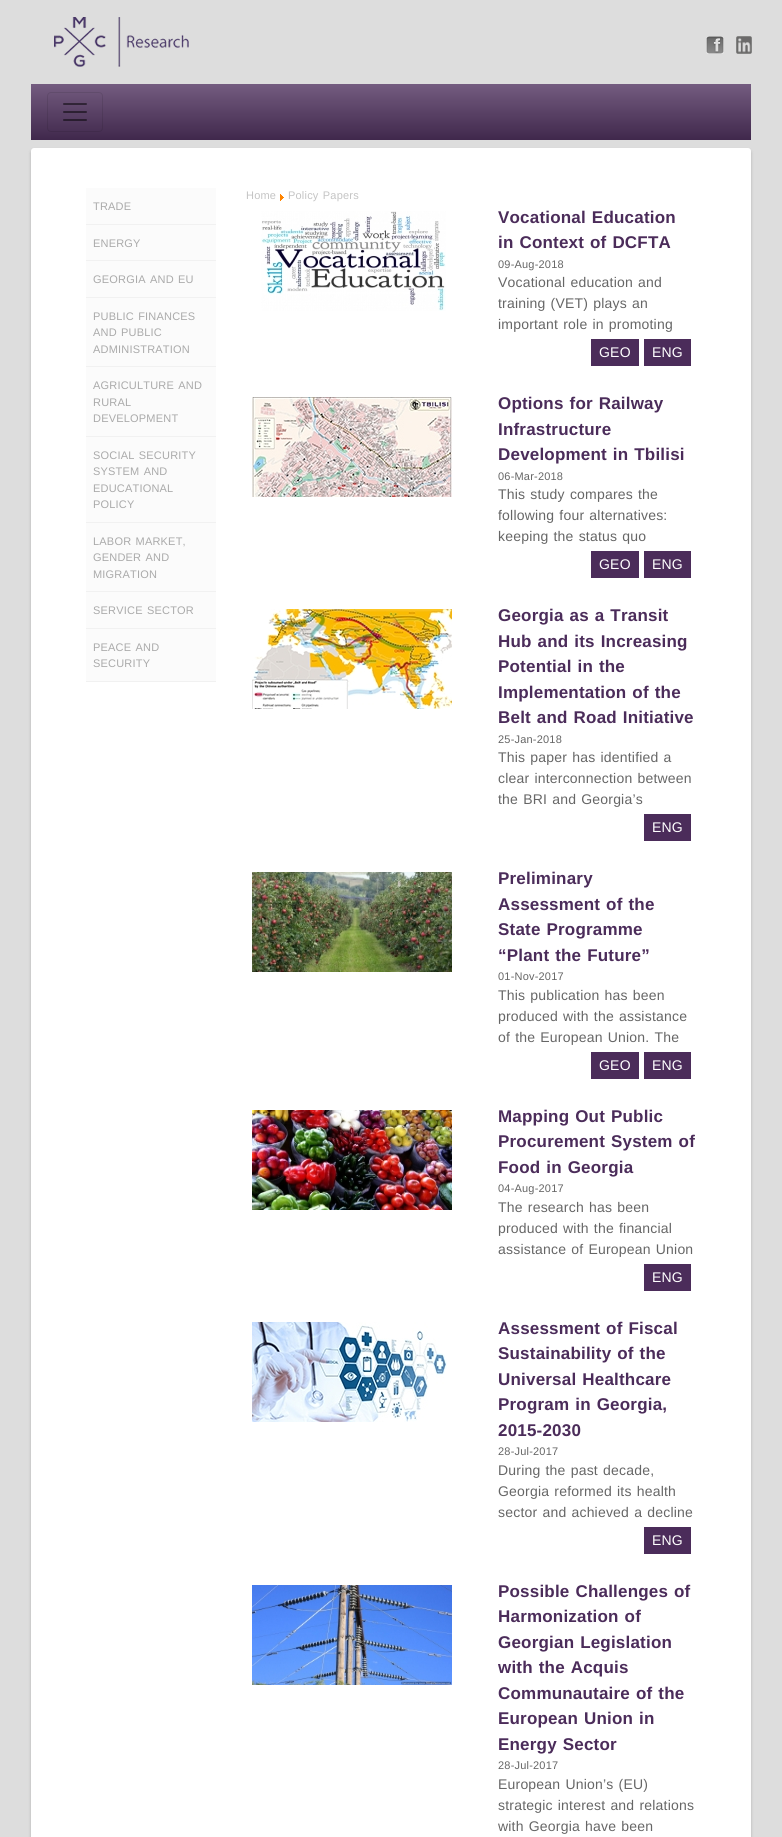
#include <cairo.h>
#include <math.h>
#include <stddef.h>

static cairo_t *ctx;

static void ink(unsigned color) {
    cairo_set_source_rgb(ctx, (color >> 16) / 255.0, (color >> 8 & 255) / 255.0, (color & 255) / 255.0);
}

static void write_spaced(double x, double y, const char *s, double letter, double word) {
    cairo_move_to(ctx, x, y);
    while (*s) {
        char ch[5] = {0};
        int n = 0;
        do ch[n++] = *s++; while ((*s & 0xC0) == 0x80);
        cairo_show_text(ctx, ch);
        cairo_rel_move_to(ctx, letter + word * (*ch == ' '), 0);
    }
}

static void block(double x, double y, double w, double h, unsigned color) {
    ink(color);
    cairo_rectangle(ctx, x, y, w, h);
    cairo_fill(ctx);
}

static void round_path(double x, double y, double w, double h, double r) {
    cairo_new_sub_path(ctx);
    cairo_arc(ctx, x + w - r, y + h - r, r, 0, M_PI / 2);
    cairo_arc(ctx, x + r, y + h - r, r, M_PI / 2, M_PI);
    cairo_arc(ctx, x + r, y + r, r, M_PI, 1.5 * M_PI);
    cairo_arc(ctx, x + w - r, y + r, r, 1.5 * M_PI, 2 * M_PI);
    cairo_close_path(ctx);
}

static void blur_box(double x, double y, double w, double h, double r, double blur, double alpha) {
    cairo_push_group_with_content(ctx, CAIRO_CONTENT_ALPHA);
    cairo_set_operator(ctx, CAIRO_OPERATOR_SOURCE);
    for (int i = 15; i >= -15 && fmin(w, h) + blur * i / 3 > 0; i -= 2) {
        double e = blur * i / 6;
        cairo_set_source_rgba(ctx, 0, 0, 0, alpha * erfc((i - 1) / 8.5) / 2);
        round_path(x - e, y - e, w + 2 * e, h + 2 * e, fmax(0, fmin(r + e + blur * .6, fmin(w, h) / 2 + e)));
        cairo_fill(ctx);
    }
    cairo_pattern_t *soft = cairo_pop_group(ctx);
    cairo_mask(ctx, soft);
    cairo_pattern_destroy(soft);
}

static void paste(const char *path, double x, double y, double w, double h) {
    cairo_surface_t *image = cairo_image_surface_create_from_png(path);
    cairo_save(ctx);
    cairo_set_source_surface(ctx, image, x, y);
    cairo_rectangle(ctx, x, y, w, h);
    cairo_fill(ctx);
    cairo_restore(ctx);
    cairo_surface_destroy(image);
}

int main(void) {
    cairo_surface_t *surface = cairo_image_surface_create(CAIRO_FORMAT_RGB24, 782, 1837);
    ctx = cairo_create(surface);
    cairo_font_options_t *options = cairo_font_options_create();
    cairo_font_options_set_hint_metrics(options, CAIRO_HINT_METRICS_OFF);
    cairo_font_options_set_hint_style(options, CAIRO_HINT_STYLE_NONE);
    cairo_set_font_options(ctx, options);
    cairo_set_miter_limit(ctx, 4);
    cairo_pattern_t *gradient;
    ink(0xdddddd);
    cairo_paint(ctx);
    paste("pic1.png", 54, 17, 135, 50);
    paste("pic2.png", 706, 36, 18, 18);
    paste("pic3.png", 736, 36, 16, 18);
    gradient = cairo_pattern_create_linear(391, 84, 391, 140);
    cairo_pattern_add_color_stop_rgba(gradient, 0.01, 0.451, 0.357, 0.498, 1);
    cairo_pattern_add_color_stop_rgba(gradient, 1, 0.251, 0.157, 0.298, 1);
    cairo_set_source(ctx, gradient);
    cairo_pattern_destroy(gradient);
    cairo_rectangle(ctx, 31, 84, 720, 56);
    cairo_fill(ctx);
    round_path(47.5, 92.5, 55, 39, 3.5);
    cairo_set_source_rgba(ctx, 0, 0, 0, 0.1);
    cairo_set_line_width(ctx, 1);
    cairo_stroke(ctx);
    paste("pic4.png", 63, 103, 24, 18);
    ink(0x000000);
    blur_box(31, 150, 720, 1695, 3, 1.5, 0.2);
    ink(0xffffff);
    round_path(31, 148, 720, 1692, 3);
    cairo_fill(ctx);
    block(86, 188, 130, 36, 0xfbfbfb);
    block(86, 224, 130, 1, 0xf1f1f1);
    cairo_select_font_face(ctx, "Liberation Sans", CAIRO_FONT_SLANT_NORMAL, CAIRO_FONT_WEIGHT_NORMAL);
    cairo_set_font_size(ctx, 11);
    ink(0xaaaaaa);
    write_spaced(93, 210, "TRADE", 0.2, 0);
    block(86, 225, 130, 35, 0xfbfbfb);
    block(86, 260, 130, 1, 0xf1f1f1);
    ink(0xaaaaaa);
    write_spaced(93, 247, "ENERGY", 0.2, 0);
    block(86, 261, 130, 36, 0xfbfbfb);
    block(86, 297, 130, 1, 0xf1f1f1);
    ink(0xaaaaaa);
    write_spaced(93, 283, "GEORGIA AND EU", 0.2, 1);
    block(86, 298, 130, 68, 0xfbfbfb);
    block(86, 366, 130, 1, 0xf1f1f1);
    ink(0xaaaaaa);
    write_spaced(93, 320, "PUBLIC FINANCES", 0.2, 1);
    write_spaced(93, 336, "AND PUBLIC", 0.2, 1);
    write_spaced(93, 353, "ADMINISTRATION", 0.2, 0);
    block(86, 367, 130, 69, 0xfbfbfb);
    block(86, 436, 130, 1, 0xf1f1f1);
    ink(0xaaaaaa);
    write_spaced(93, 389, "AGRICULTURE AND", 0.2, 1);
    write_spaced(93, 406, "RURAL", 0.2, 0);
    write_spaced(93, 422, "DEVELOPMENT", 0.2, 0);
    block(86, 437, 130, 85, 0xfbfbfb);
    block(86, 522, 130, 1, 0xf1f1f1);
    ink(0xaaaaaa);
    write_spaced(93, 459, "SOCIAL SECURITY", 0.2, 1);
    write_spaced(93, 475, "SYSTEM AND", 0.2, 1);
    write_spaced(93, 492, "EDUCATIONAL", 0.2, 0);
    write_spaced(93, 508, "POLICY", 0.2, 0);
    block(86, 523, 130, 68, 0xfbfbfb);
    block(86, 591, 130, 1, 0xf1f1f1);
    ink(0xaaaaaa);
    write_spaced(93, 545, "LABOR MARKET,", 0.2, 1);
    write_spaced(93, 561, "GENDER AND", 0.2, 1);
    write_spaced(93, 578, "MIGRATION", 0.2, 0);
    block(86, 592, 130, 36, 0xfbfbfb);
    block(86, 628, 130, 1, 0xf1f1f1);
    ink(0xaaaaaa);
    write_spaced(93, 614, "SERVICE SECTOR", 0.2, 1);
    block(86, 629, 130, 52, 0xfbfbfb);
    block(86, 681, 130, 1, 0xf1f1f1);
    ink(0xaaaaaa);
    write_spaced(93, 651, "PEACE AND", 0.2, 1);
    write_spaced(93, 667, "SECURITY", 0.2, 0);
    ink(0xc4c4c4);
    write_spaced(246, 199, "Home", 0.2, 0);
    paste("pic5.png", 280, 194, 4, 7);
    write_spaced(288, 199, "Policy Papers", 0.2, 1);
    paste("pic6.png", 261, 211, 185, 100);
    cairo_select_font_face(ctx, "Liberation Sans", CAIRO_FONT_SLANT_NORMAL, CAIRO_FONT_WEIGHT_BOLD);
    cairo_set_font_size(ctx, 17);
    ink(0x4b2c5a);
    write_spaced(498, 223, "Vocational Education", 0.2, 1);
    write_spaced(498, 248, "in Context of DCFTA", 0.2, 1);
    cairo_select_font_face(ctx, "Liberation Sans", CAIRO_FONT_SLANT_NORMAL, CAIRO_FONT_WEIGHT_NORMAL);
    cairo_set_font_size(ctx, 11);
    ink(0x666666);
    write_spaced(498, 268, "09-Aug-2018", 0.2, 0);
    cairo_set_font_size(ctx, 14);
    write_spaced(498, 287, "Vocational education and", 0.2, 1);
    write_spaced(498, 308, "training (VET) plays an", 0.2, 1);
    write_spaced(498, 329, "important role in promoting", 0.2, 1);
    block(591, 339, 48, 27, 0x4b2c5a);
    ink(0xffffff);
    write_spaced(599, 357, "GEO", 0.2, 0);
    block(644, 339, 47, 27, 0x4b2c5a);
    ink(0xffffff);
    write_spaced(652, 357, "ENG", 0.2, 0);
    paste("pic7.png", 252, 397, 200, 100);
    cairo_select_font_face(ctx, "Liberation Sans", CAIRO_FONT_SLANT_NORMAL, CAIRO_FONT_WEIGHT_BOLD);
    cairo_set_font_size(ctx, 17);
    ink(0x4b2c5a);
    write_spaced(498, 409, "Options for Railway", 0.2, 1);
    write_spaced(498, 435, "Infrastructure", 0.2, 0);
    write_spaced(498, 460, "Development in Tbilisi", 0.2, 1);
    cairo_select_font_face(ctx, "Liberation Sans", CAIRO_FONT_SLANT_NORMAL, CAIRO_FONT_WEIGHT_NORMAL);
    cairo_set_font_size(ctx, 11);
    ink(0x666666);
    write_spaced(498, 480, "06-Mar-2018", 0.2, 0);
    cairo_set_font_size(ctx, 14);
    write_spaced(498, 499, "This study compares the", 0.2, 1);
    write_spaced(498, 520, "following four alternatives:", 0.2, 1);
    write_spaced(498, 541, "keeping the status quo", 0.2, 1);
    block(591, 551, 48, 27, 0x4b2c5a);
    ink(0xffffff);
    write_spaced(599, 569, "GEO", 0.2, 0);
    block(644, 551, 47, 27, 0x4b2c5a);
    ink(0xffffff);
    write_spaced(652, 569, "ENG", 0.2, 0);
    paste("pic8.png", 252, 609, 200, 100);
    cairo_select_font_face(ctx, "Liberation Sans", CAIRO_FONT_SLANT_NORMAL, CAIRO_FONT_WEIGHT_BOLD);
    cairo_set_font_size(ctx, 17);
    ink(0x4b2c5a);
    write_spaced(498, 621, "Georgia as a Transit", 0.2, 1);
    write_spaced(498, 647, "Hub and its Increasing", 0.2, 1);
    write_spaced(498, 672, "Potential in the", 0.2, 1);
    write_spaced(498, 698, "Implementation of the", 0.2, 1);
    write_spaced(498, 723, "Belt and Road Initiative", 0.2, 1);
    cairo_select_font_face(ctx, "Liberation Sans", CAIRO_FONT_SLANT_NORMAL, CAIRO_FONT_WEIGHT_NORMAL);
    cairo_set_font_size(ctx, 11);
    ink(0x666666);
    write_spaced(498, 743, "25-Jan-2018", 0.2, 0);
    cairo_set_font_size(ctx, 14);
    write_spaced(498, 762, "This paper has identified a", 0.2, 1);
    write_spaced(498, 783, "clear interconnection between", 0.2, 1);
    write_spaced(498, 804, "the BRI and Georgia’s", 0.2, 1);
    block(644, 814, 47, 27, 0x4b2c5a);
    ink(0xffffff);
    write_spaced(652, 832, "ENG", 0.2, 0);
    paste("pic9.png", 252, 872, 200, 100);
    cairo_select_font_face(ctx, "Liberation Sans", CAIRO_FONT_SLANT_NORMAL, CAIRO_FONT_WEIGHT_BOLD);
    cairo_set_font_size(ctx, 17);
    ink(0x4b2c5a);
    write_spaced(498, 884, "Preliminary", 0.2, 0);
    write_spaced(498, 910, "Assessment of the", 0.2, 1);
    write_spaced(498, 935, "State Programme", 0.2, 1);
    write_spaced(498, 961, "“Plant the Future”", 0.2, 1);
    cairo_select_font_face(ctx, "Liberation Sans", CAIRO_FONT_SLANT_NORMAL, CAIRO_FONT_WEIGHT_NORMAL);
    cairo_set_font_size(ctx, 11);
    ink(0x666666);
    write_spaced(498, 980, "01-Nov-2017", 0.2, 0);
    cairo_set_font_size(ctx, 14);
    write_spaced(498, 1000, "This publication has been", 0.2, 1);
    write_spaced(498, 1021, "produced with the assistance", 0.2, 1);
    write_spaced(498, 1042, "of the European Union. The", 0.2, 1);
    block(591, 1052, 48, 27, 0x4b2c5a);
    ink(0xffffff);
    write_spaced(599, 1070, "GEO", 0.2, 0);
    block(644, 1052, 47, 27, 0x4b2c5a);
    ink(0xffffff);
    write_spaced(652, 1070, "ENG", 0.2, 0);
    paste("pic10.png", 252, 1110, 200, 100);
    cairo_select_font_face(ctx, "Liberation Sans", CAIRO_FONT_SLANT_NORMAL, CAIRO_FONT_WEIGHT_BOLD);
    cairo_set_font_size(ctx, 17);
    ink(0x4b2c5a);
    write_spaced(498, 1122, "Mapping Out Public", 0.2, 1);
    write_spaced(498, 1147, "Procurement System of", 0.2, 1);
    write_spaced(498, 1173, "Food in Georgia", 0.2, 1);
    cairo_select_font_face(ctx, "Liberation Sans", CAIRO_FONT_SLANT_NORMAL, CAIRO_FONT_WEIGHT_NORMAL);
    cairo_set_font_size(ctx, 11);
    ink(0x666666);
    write_spaced(498, 1192, "04-Aug-2017", 0.2, 0);
    cairo_set_font_size(ctx, 14);
    write_spaced(498, 1212, "The research has been", 0.2, 1);
    write_spaced(498, 1233, "produced with the financial", 0.2, 1);
    write_spaced(498, 1254, "assistance of European Union", 0.2, 1);
    block(644, 1264, 47, 27, 0x4b2c5a);
    ink(0xffffff);
    write_spaced(652, 1282, "ENG", 0.2, 0);
    paste("pic11.png", 252, 1322, 195, 100);
    cairo_select_font_face(ctx, "Liberation Sans", CAIRO_FONT_SLANT_NORMAL, CAIRO_FONT_WEIGHT_BOLD);
    cairo_set_font_size(ctx, 17);
    ink(0x4b2c5a);
    write_spaced(498, 1334, "Assessment of Fiscal", 0.2, 1);
    write_spaced(498, 1359, "Sustainability of the", 0.2, 1);
    write_spaced(498, 1385, "Universal Healthcare", 0.2, 1);
    write_spaced(498, 1410, "Program in Georgia,", 0.2, 1);
    write_spaced(498, 1436, "2015-2030", 0.2, 0);
    cairo_select_font_face(ctx, "Liberation Sans", CAIRO_FONT_SLANT_NORMAL, CAIRO_FONT_WEIGHT_NORMAL);
    cairo_set_font_size(ctx, 11);
    ink(0x666666);
    write_spaced(498, 1455, "28-Jul-2017", 0.2, 0);
    cairo_set_font_size(ctx, 14);
    write_spaced(498, 1475, "During the past decade,", 0.2, 1);
    write_spaced(498, 1496, "Georgia reformed its health", 0.2, 1);
    write_spaced(498, 1517, "sector and achieved a decline", 0.2, 1);
    block(644, 1527, 47, 27, 0x4b2c5a);
    ink(0xffffff);
    write_spaced(652, 1545, "ENG", 0.2, 0);
    paste("pic12.png", 252, 1585, 200, 100);
    cairo_select_font_face(ctx, "Liberation Sans", CAIRO_FONT_SLANT_NORMAL, CAIRO_FONT_WEIGHT_BOLD);
    cairo_set_font_size(ctx, 17);
    ink(0x4b2c5a);
    write_spaced(498, 1597, "Possible Challenges of", 0.2, 1);
    write_spaced(498, 1622, "Harmonization of", 0.2, 1);
    write_spaced(498, 1648, "Georgian Legislation", 0.2, 1);
    write_spaced(498, 1673, "with the Acquis", 0.2, 1);
    write_spaced(498, 1699, "Communautaire of the", 0.2, 1);
    write_spaced(498, 1724, "European Union in", 0.2, 1);
    write_spaced(498, 1750, "Energy Sector", 0.2, 1);
    cairo_select_font_face(ctx, "Liberation Sans", CAIRO_FONT_SLANT_NORMAL, CAIRO_FONT_WEIGHT_NORMAL);
    cairo_set_font_size(ctx, 11);
    ink(0x666666);
    write_spaced(498, 1769, "28-Jul-2017", 0.2, 0);
    cairo_set_font_size(ctx, 14);
    write_spaced(498, 1789, "European Union’s (EU)", 0.2, 1);
    write_spaced(498, 1810, "strategic interest and relations", 0.2, 1);
    write_spaced(498, 1831, "with Georgia have been", 0.2, 1);
    cairo_surface_write_to_png(surface, "screenshot.png");
    cairo_font_options_destroy(options);
    cairo_destroy(ctx);
    cairo_surface_destroy(surface);
    return 0;
}
